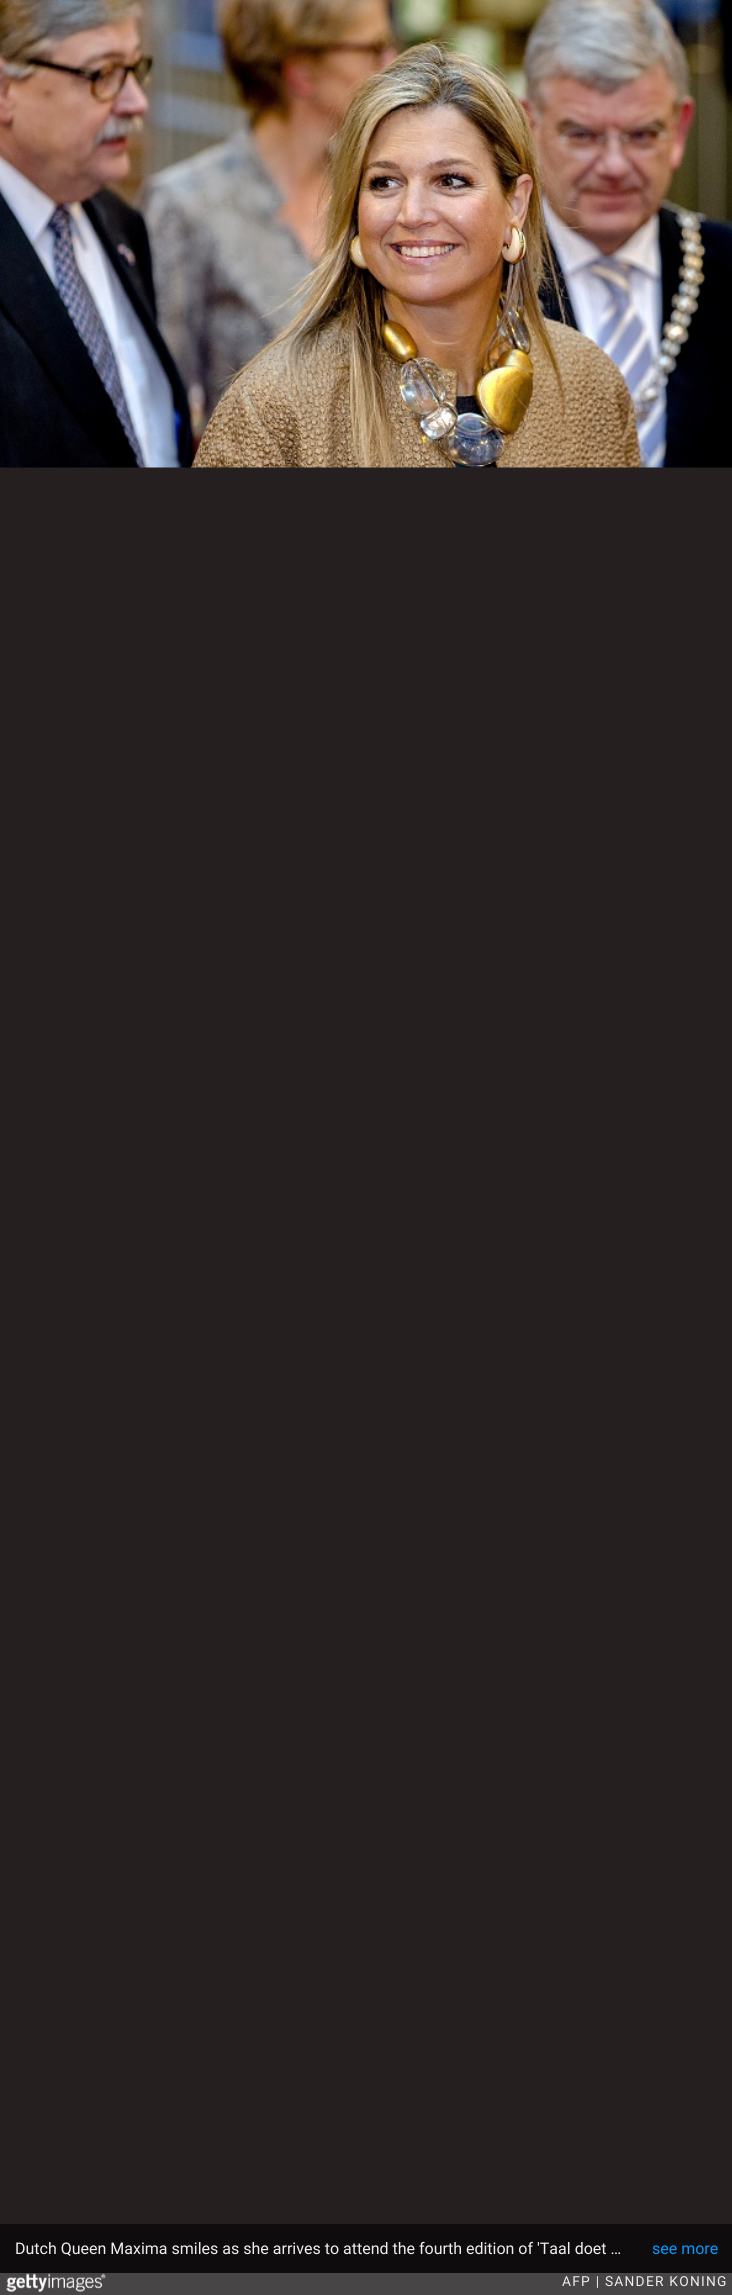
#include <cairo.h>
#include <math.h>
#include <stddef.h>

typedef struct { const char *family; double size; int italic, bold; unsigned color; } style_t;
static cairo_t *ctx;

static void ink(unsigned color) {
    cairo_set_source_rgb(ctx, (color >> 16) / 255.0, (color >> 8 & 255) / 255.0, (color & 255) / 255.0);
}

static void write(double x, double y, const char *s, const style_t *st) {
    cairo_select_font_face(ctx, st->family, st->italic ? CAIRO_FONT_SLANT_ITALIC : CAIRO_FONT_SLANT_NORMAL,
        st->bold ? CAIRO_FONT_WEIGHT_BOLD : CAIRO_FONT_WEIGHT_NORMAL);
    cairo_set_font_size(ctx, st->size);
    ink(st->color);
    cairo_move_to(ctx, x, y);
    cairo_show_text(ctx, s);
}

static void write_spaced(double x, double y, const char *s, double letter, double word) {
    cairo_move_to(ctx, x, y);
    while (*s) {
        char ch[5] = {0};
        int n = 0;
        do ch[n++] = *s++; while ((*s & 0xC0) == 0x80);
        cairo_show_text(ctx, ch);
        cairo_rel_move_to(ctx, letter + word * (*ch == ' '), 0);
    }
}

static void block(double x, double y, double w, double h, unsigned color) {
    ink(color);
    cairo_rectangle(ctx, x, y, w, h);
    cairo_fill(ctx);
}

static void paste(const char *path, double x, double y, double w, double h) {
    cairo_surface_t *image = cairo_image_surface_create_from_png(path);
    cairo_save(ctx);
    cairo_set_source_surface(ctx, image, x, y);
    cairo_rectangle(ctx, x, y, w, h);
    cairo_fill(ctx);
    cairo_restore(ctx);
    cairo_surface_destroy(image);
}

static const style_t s1 = {"Roboto", 16, 0, 0, 0xeeeeee};
static const style_t s2 = {"Roboto", 16, 0, 0, 0x0099ff};

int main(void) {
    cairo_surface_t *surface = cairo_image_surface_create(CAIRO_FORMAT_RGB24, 732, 2295);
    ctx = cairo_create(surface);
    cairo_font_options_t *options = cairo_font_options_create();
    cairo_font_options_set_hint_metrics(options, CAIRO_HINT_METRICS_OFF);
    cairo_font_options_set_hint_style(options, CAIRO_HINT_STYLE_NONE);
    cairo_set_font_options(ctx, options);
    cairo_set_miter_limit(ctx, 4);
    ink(0x251f20);
    cairo_paint(ctx);
    paste("pic1.png", 0, 0, 732, 468);
    block(0, 2224, 732, 49, 0x0f0c0d);
    write(15, 2254, "Dutch Queen Maxima smiles as she arrives to attend the fourth edition of 'Taal doet …", &s1);
    write(652, 2254, "see more", &s2);
    block(0, 2273, 732, 22, 0x474545);
    paste("pic2.png", 6, 2273, 100, 19);
    cairo_set_font_size(ctx, 13.75);
    ink(0xeeeeee);
    write_spaced(562, 2286, "AFP | SANDER KONING", 1.25, 0);
    cairo_surface_write_to_png(surface, "screenshot.png");
    cairo_font_options_destroy(options);
    cairo_destroy(ctx);
    cairo_surface_destroy(surface);
    return 0;
}
